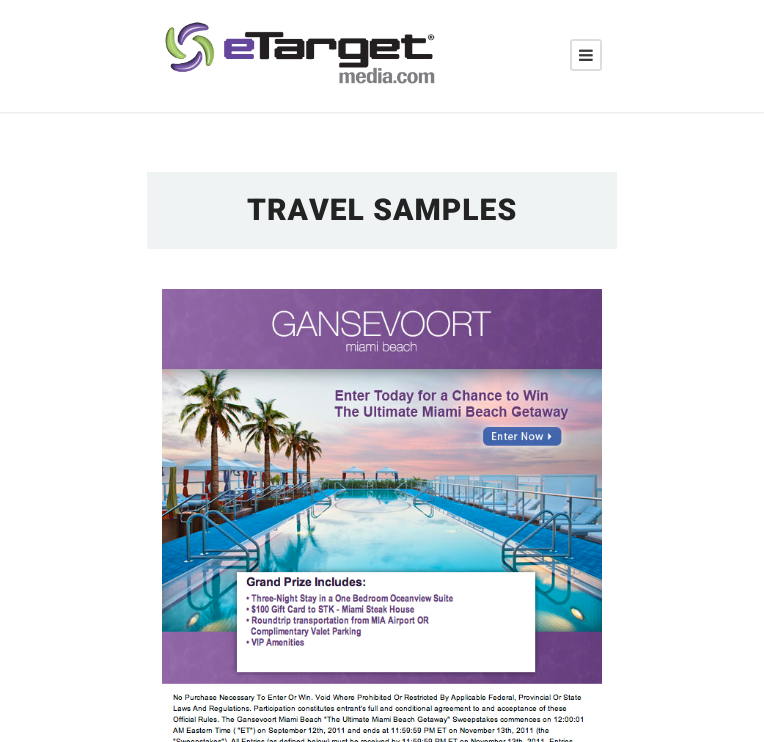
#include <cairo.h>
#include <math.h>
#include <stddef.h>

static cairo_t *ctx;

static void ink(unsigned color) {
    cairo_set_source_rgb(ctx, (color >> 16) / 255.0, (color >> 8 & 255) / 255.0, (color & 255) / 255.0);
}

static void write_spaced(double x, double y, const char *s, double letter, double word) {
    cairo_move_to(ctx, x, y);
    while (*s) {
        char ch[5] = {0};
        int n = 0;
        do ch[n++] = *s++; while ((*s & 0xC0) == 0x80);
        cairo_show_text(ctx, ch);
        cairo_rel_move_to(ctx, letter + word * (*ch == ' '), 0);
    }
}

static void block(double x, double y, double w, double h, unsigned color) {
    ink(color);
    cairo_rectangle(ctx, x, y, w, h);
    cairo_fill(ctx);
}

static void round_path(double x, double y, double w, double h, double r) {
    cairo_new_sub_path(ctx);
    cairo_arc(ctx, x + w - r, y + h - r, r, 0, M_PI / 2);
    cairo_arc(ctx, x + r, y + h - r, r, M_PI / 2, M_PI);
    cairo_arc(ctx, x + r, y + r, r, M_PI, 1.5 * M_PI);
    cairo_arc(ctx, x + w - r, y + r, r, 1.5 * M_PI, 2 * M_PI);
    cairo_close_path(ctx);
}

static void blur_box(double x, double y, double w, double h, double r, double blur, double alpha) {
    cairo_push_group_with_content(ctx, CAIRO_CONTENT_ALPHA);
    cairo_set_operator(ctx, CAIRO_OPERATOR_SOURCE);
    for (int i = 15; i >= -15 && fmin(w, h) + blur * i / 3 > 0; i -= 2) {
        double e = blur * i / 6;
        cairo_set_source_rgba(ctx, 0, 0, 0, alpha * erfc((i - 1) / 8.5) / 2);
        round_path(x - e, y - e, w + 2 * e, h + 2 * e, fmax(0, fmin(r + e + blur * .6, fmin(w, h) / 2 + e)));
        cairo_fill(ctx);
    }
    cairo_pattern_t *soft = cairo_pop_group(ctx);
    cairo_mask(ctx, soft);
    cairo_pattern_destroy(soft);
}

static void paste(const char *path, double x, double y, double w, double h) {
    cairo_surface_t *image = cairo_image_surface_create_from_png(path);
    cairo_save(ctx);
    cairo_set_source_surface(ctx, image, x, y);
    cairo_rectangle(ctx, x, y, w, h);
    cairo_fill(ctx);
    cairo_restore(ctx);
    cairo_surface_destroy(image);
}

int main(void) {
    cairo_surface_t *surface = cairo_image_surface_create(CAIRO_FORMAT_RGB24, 764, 742);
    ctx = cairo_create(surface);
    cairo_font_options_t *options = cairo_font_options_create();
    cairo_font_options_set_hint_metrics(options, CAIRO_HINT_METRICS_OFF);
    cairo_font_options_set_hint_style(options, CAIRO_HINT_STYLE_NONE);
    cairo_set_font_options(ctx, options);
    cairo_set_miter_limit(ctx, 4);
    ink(0xffffff);
    cairo_paint(ctx);
    cairo_save(ctx);
    cairo_rectangle(ctx, 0, 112, 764, 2);
    cairo_clip(ctx);
    ink(0x000000);
    blur_box(0, 1, 764, 112, 0, 1, 0.1);
    cairo_restore(ctx);
    paste("pic1.png", 165, 22, 270, 62);
    round_path(571, 40, 30, 30, 2);
    ink(0xdddddd);
    cairo_stroke(ctx);
    paste("pic2.png", 579, 49, 14, 12);
    block(147, 172, 470, 77, 0xeff3f4);
    cairo_select_font_face(ctx, "Roboto Black", CAIRO_FONT_SLANT_NORMAL, CAIRO_FONT_WEIGHT_NORMAL);
    cairo_set_font_size(ctx, 30);
    ink(0x232323);
    write_spaced(247, 220, "TRAVEL SAMPLES", 1, 0);
    paste("pic3.png", 162, 289, 440, 453);
    cairo_surface_write_to_png(surface, "screenshot.png");
    cairo_font_options_destroy(options);
    cairo_destroy(ctx);
    cairo_surface_destroy(surface);
    return 0;
}
